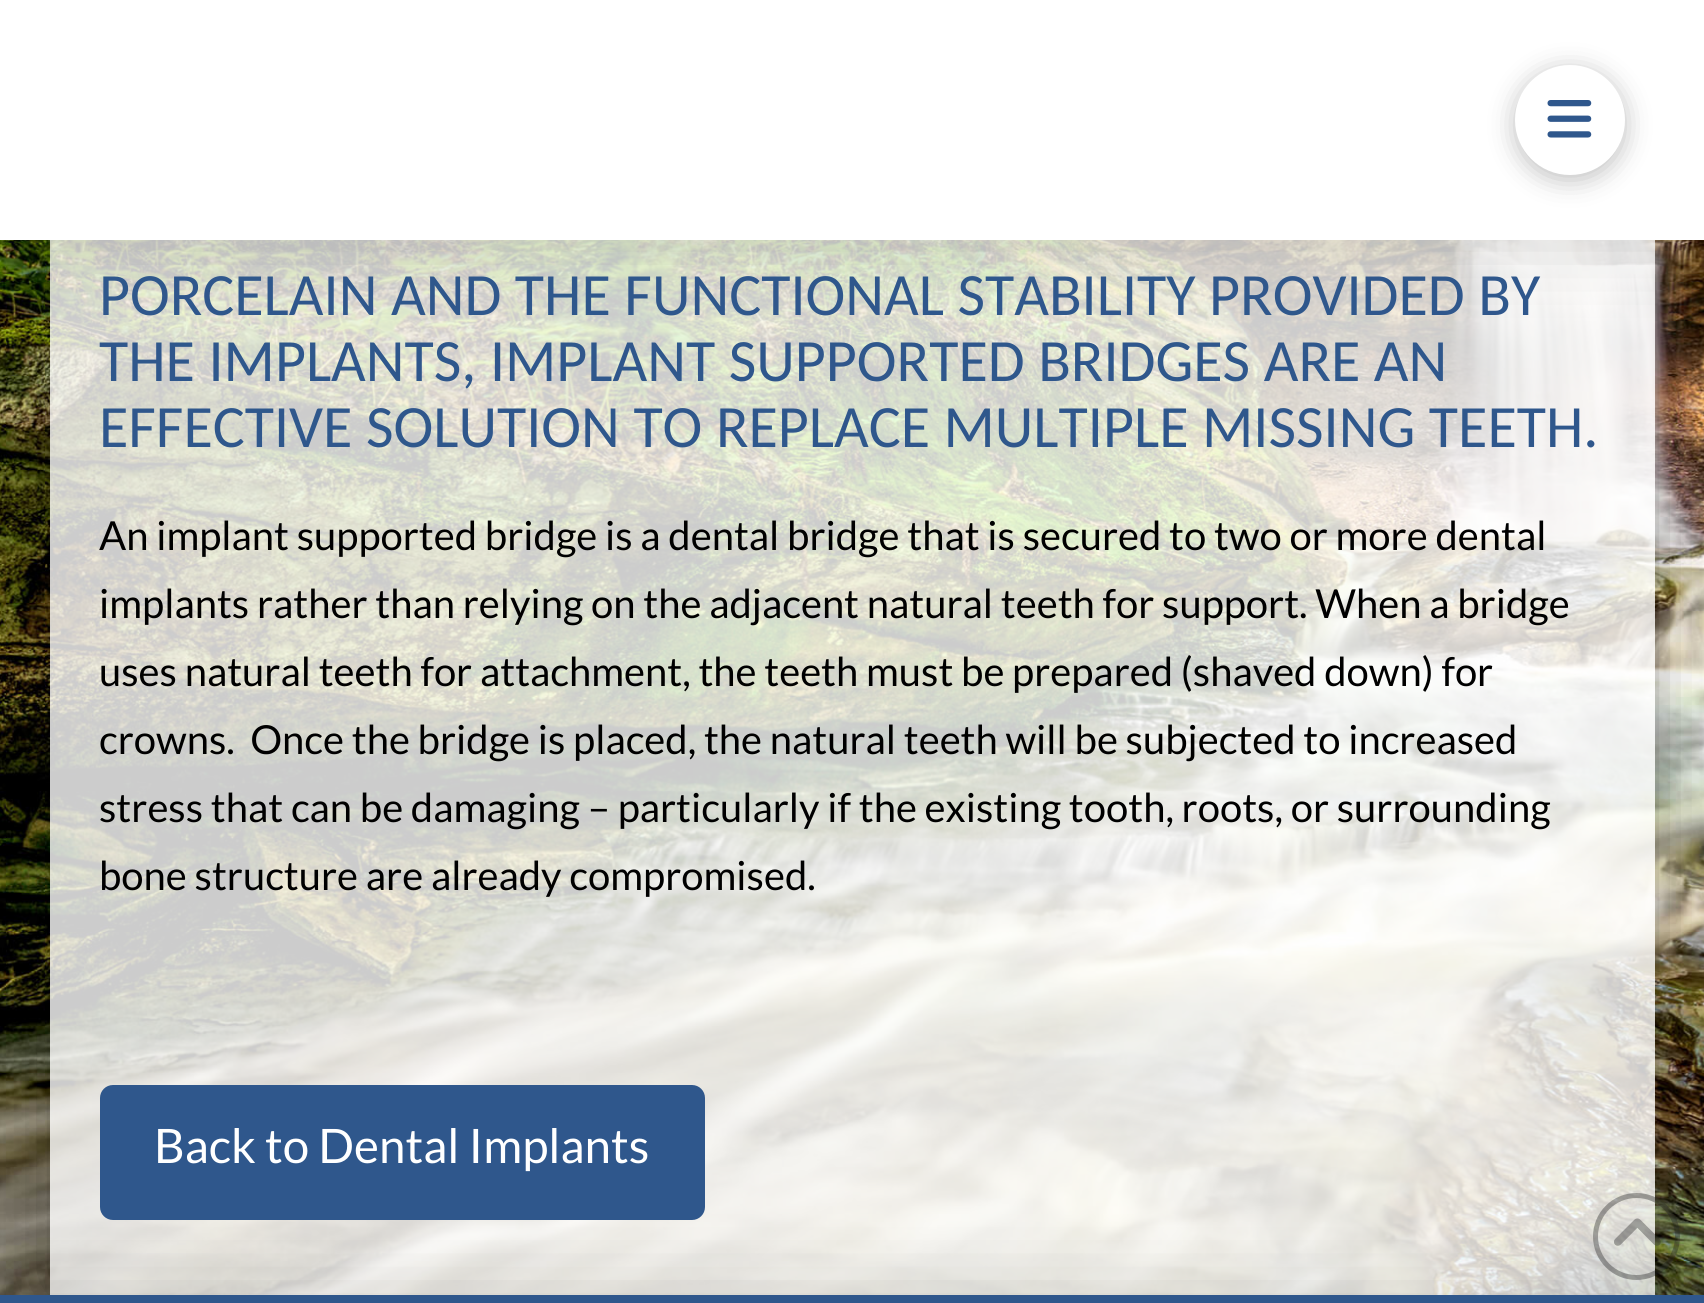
#include <cairo.h>
#include <math.h>
#include <stddef.h>

typedef struct { const char *family; double size; int italic, bold; unsigned color; } style_t;
static cairo_t *ctx;

static void ink(unsigned color) {
    cairo_set_source_rgb(ctx, (color >> 16) / 255.0, (color >> 8 & 255) / 255.0, (color & 255) / 255.0);
}

static void write(double x, double y, const char *s, const style_t *st) {
    cairo_select_font_face(ctx, st->family, st->italic ? CAIRO_FONT_SLANT_ITALIC : CAIRO_FONT_SLANT_NORMAL,
        st->bold ? CAIRO_FONT_WEIGHT_BOLD : CAIRO_FONT_WEIGHT_NORMAL);
    cairo_set_font_size(ctx, st->size);
    ink(st->color);
    cairo_move_to(ctx, x, y);
    cairo_show_text(ctx, s);
}

static void block(double x, double y, double w, double h, unsigned color) {
    ink(color);
    cairo_rectangle(ctx, x, y, w, h);
    cairo_fill(ctx);
}

static void round_path(double x, double y, double w, double h, double r) {
    cairo_new_sub_path(ctx);
    cairo_arc(ctx, x + w - r, y + h - r, r, 0, M_PI / 2);
    cairo_arc(ctx, x + r, y + h - r, r, M_PI / 2, M_PI);
    cairo_arc(ctx, x + r, y + r, r, M_PI, 1.5 * M_PI);
    cairo_arc(ctx, x + w - r, y + r, r, 1.5 * M_PI, 2 * M_PI);
    cairo_close_path(ctx);
}

static void blur_box(double x, double y, double w, double h, double r, double blur, double alpha) {
    cairo_push_group_with_content(ctx, CAIRO_CONTENT_ALPHA);
    cairo_set_operator(ctx, CAIRO_OPERATOR_SOURCE);
    for (int i = 15; i >= -15 && fmin(w, h) + blur * i / 3 > 0; i -= 2) {
        double e = blur * i / 6;
        cairo_set_source_rgba(ctx, 0, 0, 0, alpha * erfc((i - 1) / 8.5) / 2);
        round_path(x - e, y - e, w + 2 * e, h + 2 * e, fmax(0, fmin(r + e + blur * .6, fmin(w, h) / 2 + e)));
        cairo_fill(ctx);
    }
    cairo_pattern_t *soft = cairo_pop_group(ctx);
    cairo_mask(ctx, soft);
    cairo_pattern_destroy(soft);
}

static void paste(const char *path, double x, double y, double w, double h) {
    cairo_surface_t *image = cairo_image_surface_create_from_png(path);
    cairo_save(ctx);
    cairo_set_source_surface(ctx, image, x, y);
    cairo_rectangle(ctx, x, y, w, h);
    cairo_fill(ctx);
    cairo_restore(ctx);
    cairo_surface_destroy(image);
}

static const style_t s1 = {"Carlito", 60, 0, 0, 0x2f578c};
static const style_t s2 = {"Lato", 40, 0, 0, 0x000000};
static const style_t s3 = {"Lato", 47.5, 0, 0, 0xffffff};

int main(void) {
    cairo_surface_t *surface = cairo_image_surface_create(CAIRO_FORMAT_RGB24, 1704, 1303);
    ctx = cairo_create(surface);
    cairo_font_options_t *options = cairo_font_options_create();
    cairo_font_options_set_hint_metrics(options, CAIRO_HINT_METRICS_OFF);
    cairo_font_options_set_hint_style(options, CAIRO_HINT_STYLE_NONE);
    cairo_set_font_options(ctx, options);
    cairo_set_miter_limit(ctx, 4);
    ink(0xffffff);
    cairo_paint(ctx);
    paste("pic1.png", 0, 240, 1704, 1055);
    ink(0x000000);
    blur_box(0, 5, 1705, 240, 0, 40, 0.15);
    cairo_save(ctx);
    cairo_set_fill_rule(ctx, CAIRO_FILL_RULE_EVEN_ODD);
    cairo_new_path(ctx);
    cairo_move_to(ctx, 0, 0);
    cairo_line_to(ctx, 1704, 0);
    cairo_line_to(ctx, 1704, 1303);
    cairo_line_to(ctx, 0, 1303);
    cairo_close_path(ctx);
    cairo_move_to(ctx, 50, -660);
    cairo_line_to(ctx, 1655, -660);
    cairo_line_to(ctx, 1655, 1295);
    cairo_line_to(ctx, 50, 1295);
    cairo_close_path(ctx);
    cairo_clip(ctx);
    blur_box(63, -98, 1580, 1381, 0, 32.5, 0.5);
    cairo_restore(ctx);
    block(0, 0, 1704, 240, 0xffffff);
    ink(0x000000);
    blur_box(1515, 70, 110, 110, 55, 13, 0.25);
    ink(0xffffff);
    cairo_arc(ctx, 1570, 120, 55, 0, 2 * M_PI);
    cairo_fill(ctx);
    paste("pic2.png", 1547, 100, 45, 38);
    write(99, 315, "PORCELAIN AND THE FUNCTIONAL STABILITY PROVIDED BY", &s1);
    write(99, 381, "THE IMPLANTS, IMPLANT SUPPORTED BRIDGES ARE AN", &s1);
    write(99, 447, "EFFECTIVE SOLUTION TO REPLACE MULTIPLE MISSING TEETH.", &s1);
    write(99, 550, "An implant supported bridge is a dental bridge that is secured to two or more dental", &s2);
    write(99, 618, "implants rather than relying on the adjacent natural teeth for support. When a bridge", &s2);
    write(99, 686, "uses natural teeth for attachment, the teeth must be prepared (shaved down) for", &s2);
    write(99, 754, "crowns.  Once the bridge is placed, the natural teeth will be subjected to increased", &s2);
    write(99, 822, "stress that can be damaging – particularly if the existing tooth, roots, or surrounding", &s2);
    write(99, 890, "bone structure are already compromised.", &s2);
    ink(0x2f578c);
    round_path(101.5, 1086.5, 602, 132, 11.5);
    cairo_fill_preserve(ctx);
    cairo_set_line_width(ctx, 3);
    cairo_stroke(ctx);
    write(154, 1163, "Back to Dental Implants", &s3);
    ink(0x000000);
    blur_box(0, 1300, 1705, 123, 0, 40, 0.15);
    block(0, 1295, 1704, 8, 0x2f578c);
    cairo_arc(ctx, 1636.5, 1236.5, 41, 0, 2 * M_PI);
    cairo_set_source_rgba(ctx, 0.153, 0.153, 0.153, 0.38);
    cairo_set_line_width(ctx, 5);
    cairo_stroke(ctx);
    paste("pic3.png", 1614, 1218, 47, 28);
    cairo_surface_write_to_png(surface, "screenshot.png");
    cairo_font_options_destroy(options);
    cairo_destroy(ctx);
    cairo_surface_destroy(surface);
    return 0;
}
